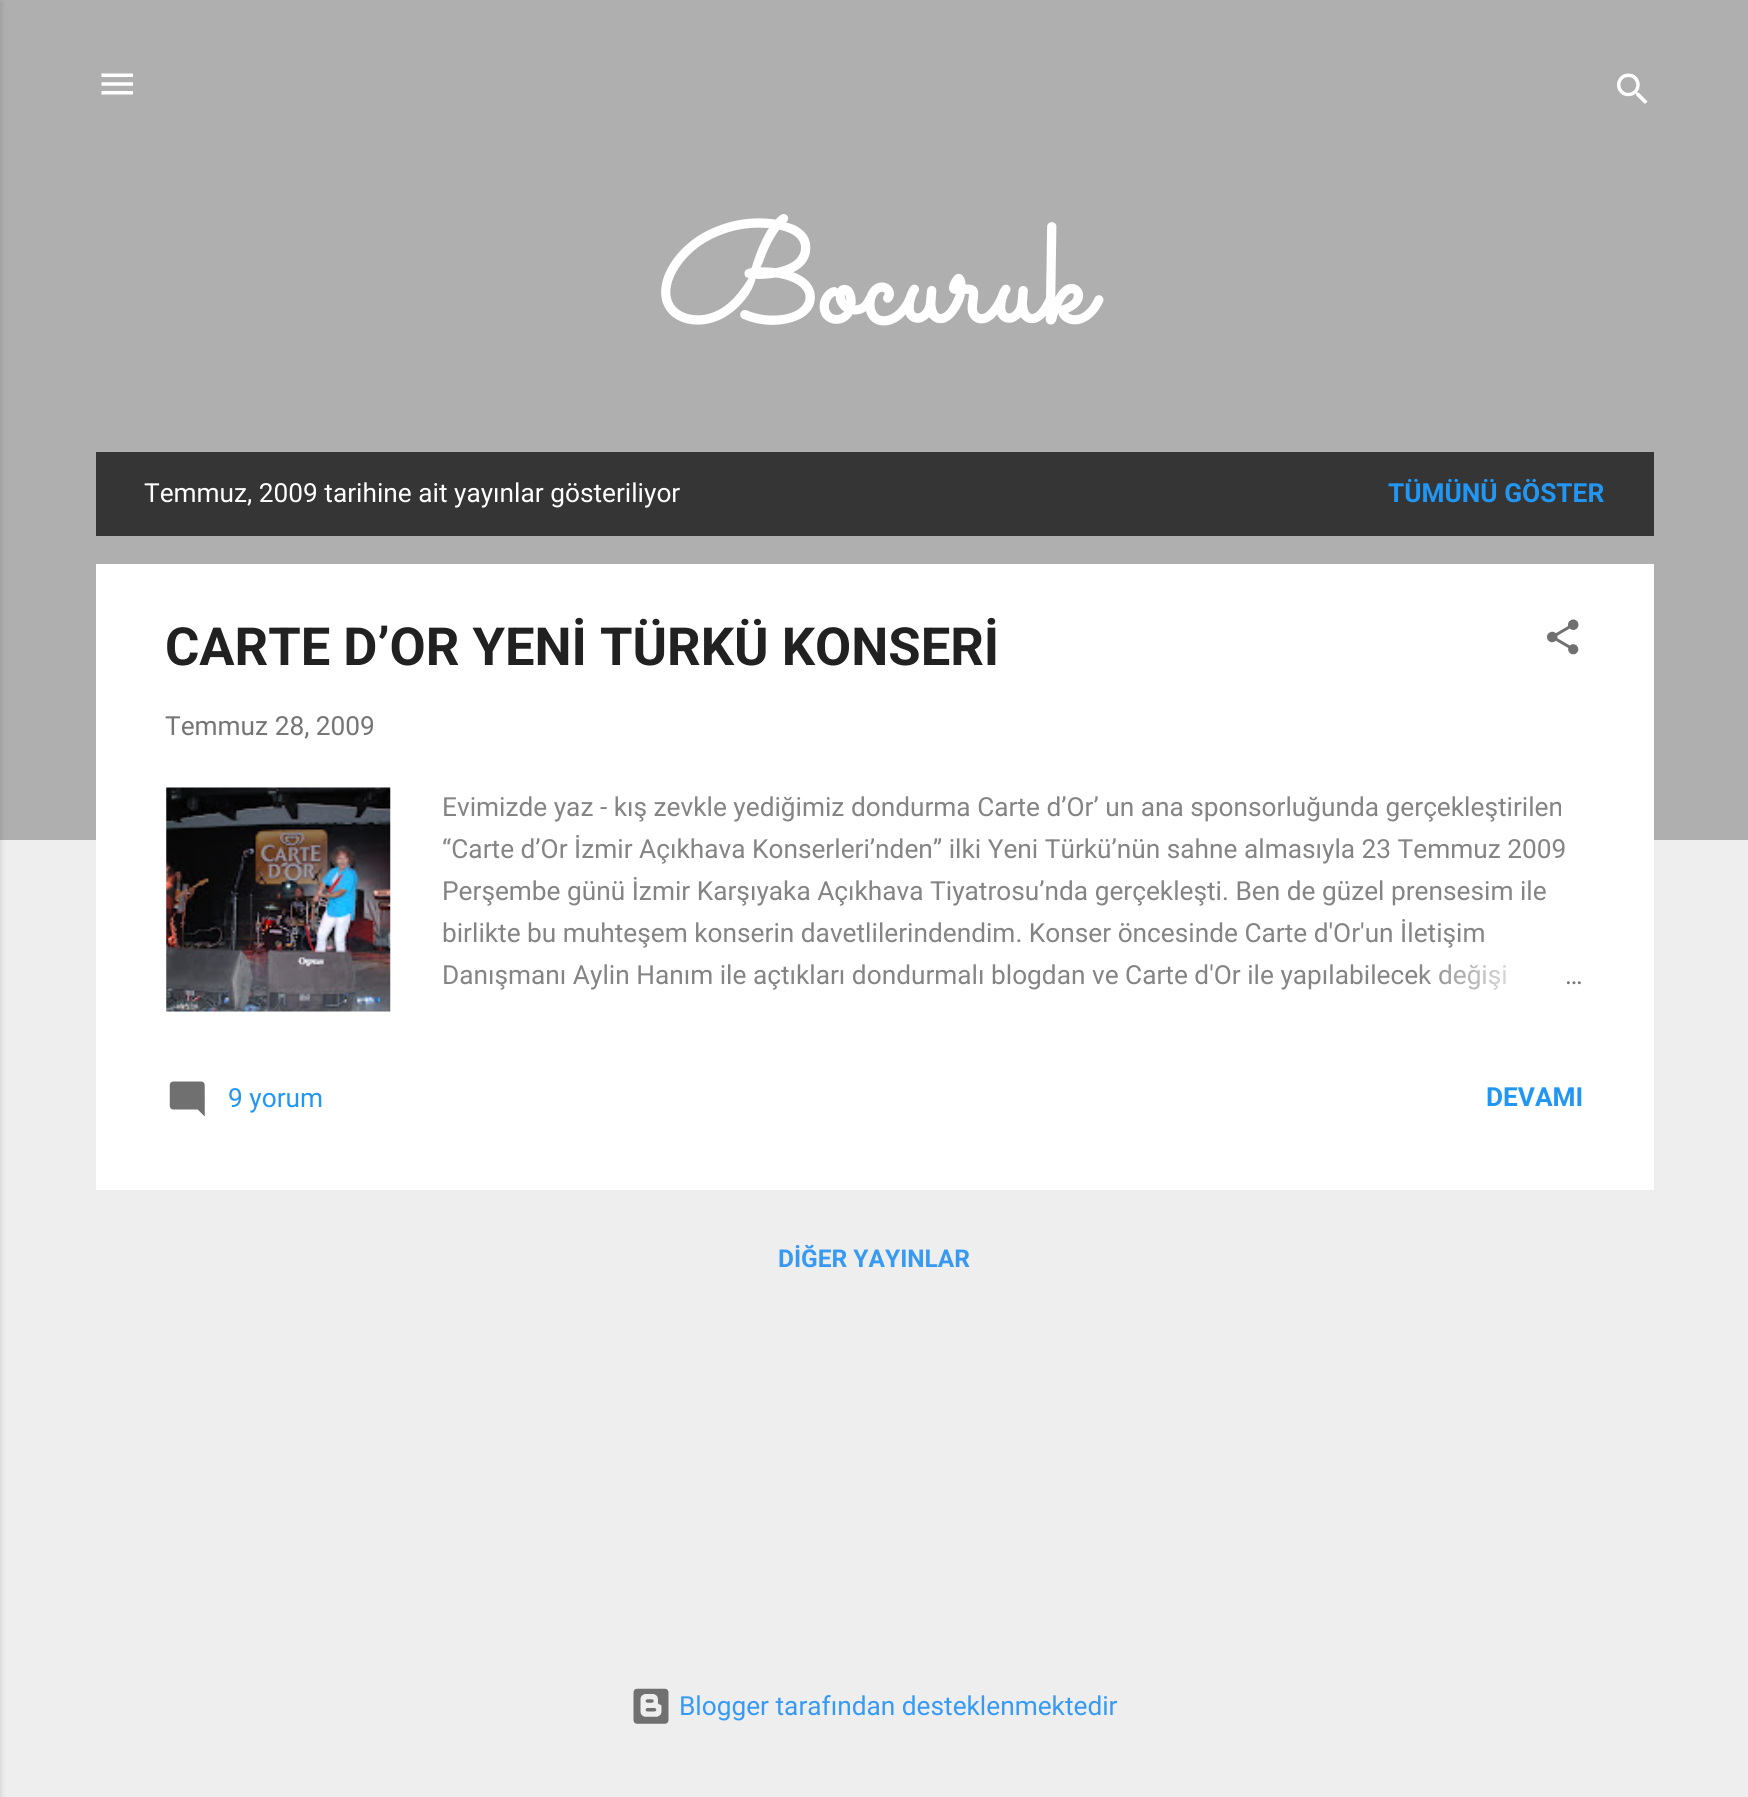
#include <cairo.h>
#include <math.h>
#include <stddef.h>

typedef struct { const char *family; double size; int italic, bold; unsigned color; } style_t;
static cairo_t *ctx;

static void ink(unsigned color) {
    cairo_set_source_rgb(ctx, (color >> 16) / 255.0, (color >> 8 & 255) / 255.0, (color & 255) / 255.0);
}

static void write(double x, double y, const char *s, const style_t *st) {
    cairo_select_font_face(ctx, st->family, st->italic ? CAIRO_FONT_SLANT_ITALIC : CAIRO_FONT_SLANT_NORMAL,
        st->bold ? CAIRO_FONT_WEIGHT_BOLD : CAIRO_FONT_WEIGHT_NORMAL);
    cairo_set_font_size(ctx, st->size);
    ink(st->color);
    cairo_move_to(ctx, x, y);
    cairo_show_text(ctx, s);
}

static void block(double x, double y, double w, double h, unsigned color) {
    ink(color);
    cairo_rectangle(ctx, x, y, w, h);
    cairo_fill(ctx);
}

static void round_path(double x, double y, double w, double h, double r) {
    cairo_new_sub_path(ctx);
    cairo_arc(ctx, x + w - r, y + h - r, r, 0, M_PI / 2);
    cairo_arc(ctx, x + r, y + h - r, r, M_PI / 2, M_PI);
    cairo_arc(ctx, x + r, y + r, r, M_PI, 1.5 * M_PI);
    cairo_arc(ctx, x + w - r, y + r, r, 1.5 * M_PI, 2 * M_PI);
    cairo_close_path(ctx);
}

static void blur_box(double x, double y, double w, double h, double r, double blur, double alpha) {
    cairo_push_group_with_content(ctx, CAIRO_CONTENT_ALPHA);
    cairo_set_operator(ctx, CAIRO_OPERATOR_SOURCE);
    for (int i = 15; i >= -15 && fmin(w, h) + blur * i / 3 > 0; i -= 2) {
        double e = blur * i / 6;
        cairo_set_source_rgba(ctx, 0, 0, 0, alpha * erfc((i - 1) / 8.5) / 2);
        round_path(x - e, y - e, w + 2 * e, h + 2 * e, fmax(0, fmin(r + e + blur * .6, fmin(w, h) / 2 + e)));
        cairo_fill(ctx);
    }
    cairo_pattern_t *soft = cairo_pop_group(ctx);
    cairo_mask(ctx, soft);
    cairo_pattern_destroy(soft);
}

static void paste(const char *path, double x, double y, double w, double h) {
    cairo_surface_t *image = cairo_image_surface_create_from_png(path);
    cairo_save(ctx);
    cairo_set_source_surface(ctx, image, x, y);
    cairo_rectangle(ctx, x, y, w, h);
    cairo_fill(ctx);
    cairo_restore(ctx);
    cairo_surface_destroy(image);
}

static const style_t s1 = {"Sacramento", 140, 0, 1, 0xffffff};
static const style_t s2 = {"Roboto", 26.25, 0, 0, 0xffffff};
static const style_t s3 = {"Roboto", 26.25, 0, 1, 0x2196f3};
static const style_t s4 = {"Roboto", 52.5, 0, 1, 0x212121};
static const style_t s5 = {"Roboto", 26.25, 0, 0, 0x757575};
static const style_t s6 = {"Roboto", 26.25, 0, 0, 0x848484};
static const style_t s7 = {"Roboto", 26.25, 0, 0, 0x2196f3};
static const style_t s8 = {"Roboto", 24.5, 0, 1, 0x369af4};
static const style_t s9 = {"Roboto", 26.25, 0, 0, 0x369af4};

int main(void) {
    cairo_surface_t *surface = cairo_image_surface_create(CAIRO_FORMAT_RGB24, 1748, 1797);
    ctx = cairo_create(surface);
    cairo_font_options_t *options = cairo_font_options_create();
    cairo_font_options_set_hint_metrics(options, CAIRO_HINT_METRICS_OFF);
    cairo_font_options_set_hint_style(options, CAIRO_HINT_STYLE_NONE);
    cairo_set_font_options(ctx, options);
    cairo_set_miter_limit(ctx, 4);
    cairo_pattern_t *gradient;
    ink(0xeeeeee);
    cairo_paint(ctx);
    block(0, 0, 1748, 840, 0xafafaf);
    ink(0x000000);
    blur_box(-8, 2, 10, 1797, 0, 2.5, 0.1);
    paste("pic1.png", 101, 73, 32, 22);
    paste("pic2.png", 1617, 73, 31, 31);
    write(657, 322, "Bocuruk", &s1);
    block(96, 452, 1558, 84, 0x353535);
    write(144, 502, "Temmuz, 2009 tarihine ait yayınlar gösteriliyor", &s2);
    write(1388, 502, "TÜMÜNÜ GÖSTER", &s3);
    block(96, 564, 1558, 626, 0xffffff);
    write(165, 665, "CARTE D’OR YENİ TÜRKÜ KONSERİ", &s4);
    paste("pic3.png", 1547, 619, 32, 36);
    write(165, 735, "Temmuz 28, 2009", &s5);
    paste("pic4.png", 166, 787, 225, 225);
    write(442, 816, "Evimizde yaz - kış zevkle yediğimiz dondurma Carte d’Or’ un ana sponsorluğunda gerçekleştirilen", &s6);
    write(442, 858, "“Carte d’Or İzmir Açıkhava Konserleri’nden” ilki Yeni Türkü’nün sahne almasıyla 23 Temmuz 2009", &s6);
    write(442, 900, "Perşembe günü İzmir Karşıyaka Açıkhava Tiyatrosu’nda gerçekleşti. Ben de güzel prensesim ile", &s6);
    write(442, 942, "birlikte bu muhteşem konserin davetlilerindendim. Konser öncesinde Carte d'Or'un İletişim", &s6);
    write(442, 984, "Danışmanı Aylin Hanım ile açtıkları dondurmalı blogdan ve Carte d'Or ile yapılabilecek değişi", &s6);
    gradient = cairo_pattern_create_linear(1584, 977, 1416, 977);
    cairo_pattern_add_color_stop_rgba(gradient, 0, 1, 1, 1, 1);
    cairo_pattern_add_color_stop_rgba(gradient, 0.2, 1, 1, 1, 1);
    cairo_pattern_add_color_stop_rgba(gradient, 1, 1, 1, 1, 0);
    cairo_set_source(ctx, gradient);
    cairo_pattern_destroy(gradient);
    cairo_rectangle(ctx, 1420, 964, 86, 26);
    cairo_fill(ctx);
    write(1565, 984, "…", &s5);
    paste("pic5.png", 169, 1081, 36, 36);
    write(228, 1107, "9 yorum", &s7);
    write(1486, 1106, "DEVAMI", &s3);
    write(778, 1267, "DİĞER YAYINLAR", &s8);
    paste("pic6.png", 633, 1688, 36, 36);
    write(679, 1715, "Blogger tarafından desteklenmektedir", &s9);
    cairo_surface_write_to_png(surface, "screenshot.png");
    cairo_font_options_destroy(options);
    cairo_destroy(ctx);
    cairo_surface_destroy(surface);
    return 0;
}
